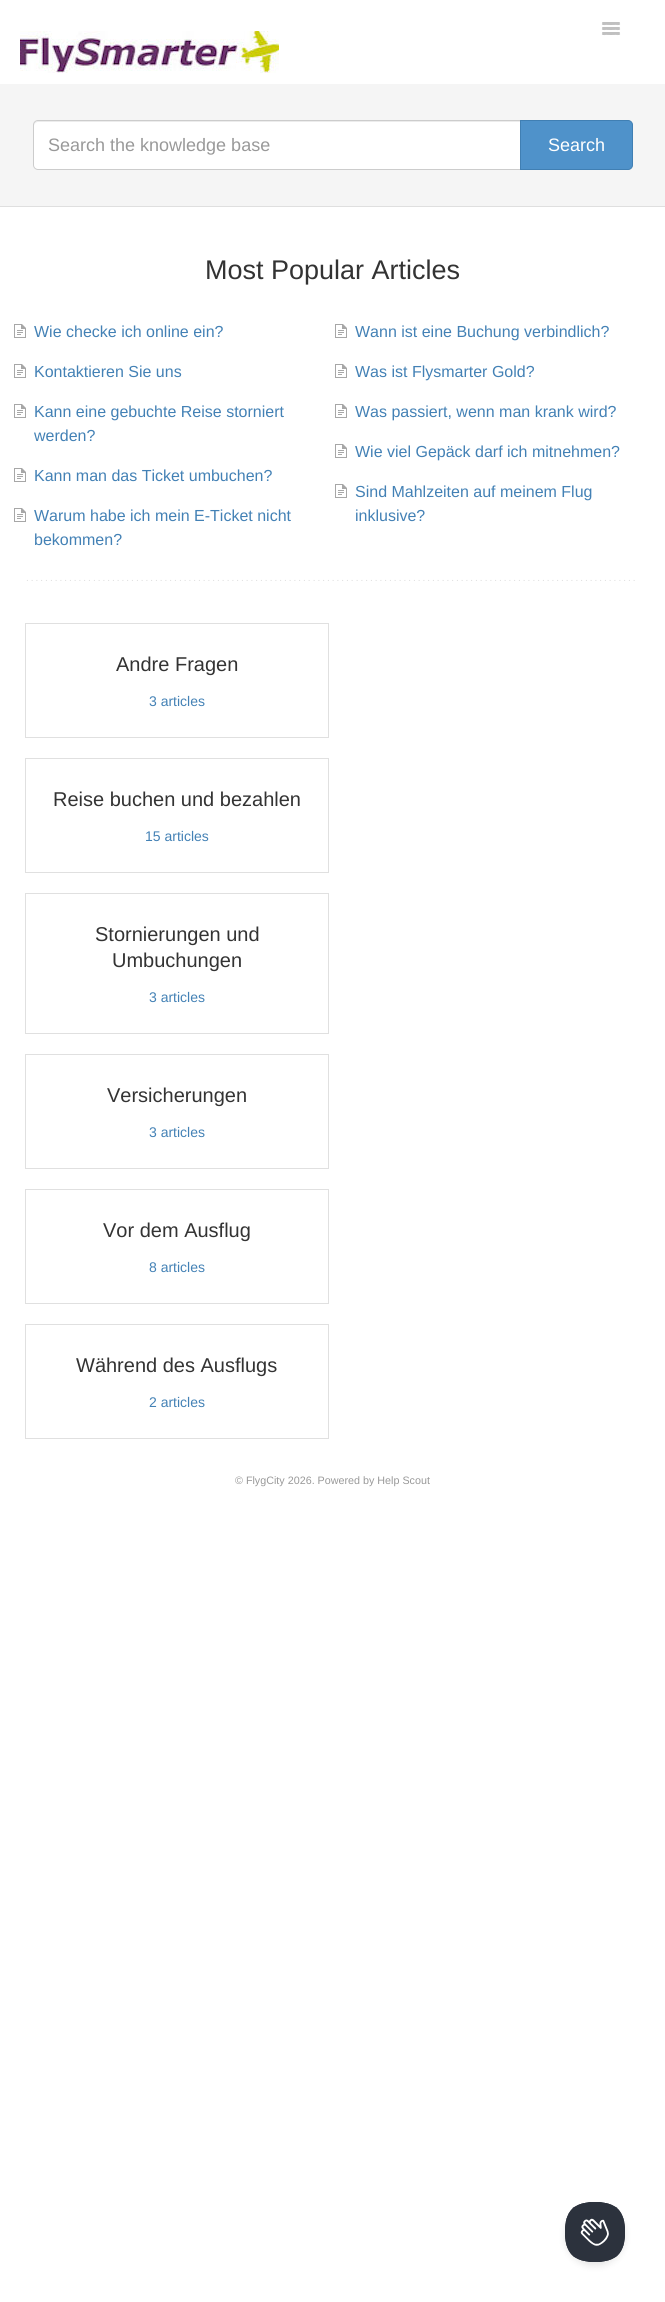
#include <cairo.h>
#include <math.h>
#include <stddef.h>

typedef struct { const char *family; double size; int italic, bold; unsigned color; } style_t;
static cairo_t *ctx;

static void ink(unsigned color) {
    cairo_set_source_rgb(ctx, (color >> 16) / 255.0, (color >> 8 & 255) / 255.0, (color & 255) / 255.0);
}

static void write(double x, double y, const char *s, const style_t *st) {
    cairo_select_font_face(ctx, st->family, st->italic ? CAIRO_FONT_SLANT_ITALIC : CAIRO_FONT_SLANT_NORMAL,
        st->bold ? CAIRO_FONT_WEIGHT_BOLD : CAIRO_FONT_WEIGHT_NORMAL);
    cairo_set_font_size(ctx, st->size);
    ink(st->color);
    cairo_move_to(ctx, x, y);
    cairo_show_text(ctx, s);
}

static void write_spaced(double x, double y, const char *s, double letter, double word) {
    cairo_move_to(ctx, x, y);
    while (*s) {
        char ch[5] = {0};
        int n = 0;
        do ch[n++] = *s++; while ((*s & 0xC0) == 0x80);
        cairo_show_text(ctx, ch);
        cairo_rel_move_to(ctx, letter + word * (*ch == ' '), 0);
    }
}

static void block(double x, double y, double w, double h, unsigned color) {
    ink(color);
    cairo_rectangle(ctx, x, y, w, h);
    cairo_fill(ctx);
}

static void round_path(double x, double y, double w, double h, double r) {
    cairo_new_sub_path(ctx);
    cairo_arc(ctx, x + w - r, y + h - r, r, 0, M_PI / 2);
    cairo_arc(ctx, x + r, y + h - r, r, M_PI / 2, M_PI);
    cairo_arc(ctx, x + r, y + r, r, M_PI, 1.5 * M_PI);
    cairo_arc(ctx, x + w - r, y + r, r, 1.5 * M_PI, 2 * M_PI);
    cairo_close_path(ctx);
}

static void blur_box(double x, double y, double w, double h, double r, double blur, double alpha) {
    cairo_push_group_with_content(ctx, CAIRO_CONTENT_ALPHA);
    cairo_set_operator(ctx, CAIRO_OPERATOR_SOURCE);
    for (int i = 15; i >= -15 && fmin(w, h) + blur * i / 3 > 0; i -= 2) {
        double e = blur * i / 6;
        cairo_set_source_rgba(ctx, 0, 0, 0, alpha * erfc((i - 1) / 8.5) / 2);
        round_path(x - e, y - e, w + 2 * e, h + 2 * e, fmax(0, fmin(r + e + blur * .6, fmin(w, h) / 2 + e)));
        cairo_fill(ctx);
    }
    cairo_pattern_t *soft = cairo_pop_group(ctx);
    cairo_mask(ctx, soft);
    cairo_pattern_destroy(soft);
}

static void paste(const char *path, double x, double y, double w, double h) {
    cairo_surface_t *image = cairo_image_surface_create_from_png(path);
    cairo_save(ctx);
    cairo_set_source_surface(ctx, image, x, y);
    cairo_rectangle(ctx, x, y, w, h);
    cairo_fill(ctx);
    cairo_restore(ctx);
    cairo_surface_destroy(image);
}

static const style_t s1 = {"Liberation Sans", 18, 0, 0, 0x999999};
static const style_t s2 = {"Liberation Sans", 18, 0, 0, 0xffffff};
static const style_t s3 = {"Liberation Sans", 27, 0, 0, 0x333333};
static const style_t s4 = {"Liberation Sans", 16, 0, 0, 0x4381b5};
static const style_t s5 = {"Liberation Sans", 20, 0, 0, 0x333333};
static const style_t s6 = {"Liberation Sans", 14, 0, 0, 0x4381b5};
static const style_t s7 = {"Liberation Sans", 10.75, 0, 0, 0x999999};

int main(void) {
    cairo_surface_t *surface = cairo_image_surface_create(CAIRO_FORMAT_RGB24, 665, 2302);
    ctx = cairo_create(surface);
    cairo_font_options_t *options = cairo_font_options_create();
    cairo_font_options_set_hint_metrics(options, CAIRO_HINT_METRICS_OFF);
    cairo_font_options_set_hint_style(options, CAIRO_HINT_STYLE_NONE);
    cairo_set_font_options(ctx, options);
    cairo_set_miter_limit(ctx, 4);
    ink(0xffffff);
    cairo_paint(ctx);
    ink(0xbfbfbf);
    cairo_new_path(ctx);
    cairo_move_to(ctx, 602, 23.5);
    cairo_curve_to(ctx, 601, 25.5, 605.5, 25, 605.5, 25);
    cairo_line_to(ctx, 616.5, 25);
    cairo_curve_to(ctx, 616.5, 25, 621, 25.5, 620, 23.5);
    cairo_curve_to(ctx, 619, 24.5, 612.5, 24, 611, 24);
    cairo_curve_to(ctx, 609.5, 24, 603, 24.5, 602, 23.5);
    cairo_close_path(ctx);
    cairo_fill(ctx);
    ink(0xc0c0c0);
    round_path(602, 22, 18, 2, 1);
    cairo_fill(ctx);
    ink(0xbfbfbf);
    cairo_new_path(ctx);
    cairo_move_to(ctx, 602, 28.5);
    cairo_curve_to(ctx, 601, 30.5, 605.5, 30, 605.5, 30);
    cairo_line_to(ctx, 616.5, 30);
    cairo_curve_to(ctx, 616.5, 30, 621, 30.5, 620, 28.5);
    cairo_curve_to(ctx, 619, 29.5, 612.5, 29, 611, 29);
    cairo_curve_to(ctx, 609.5, 29, 603, 29.5, 602, 28.5);
    cairo_close_path(ctx);
    cairo_fill(ctx);
    ink(0xc0c0c0);
    round_path(602, 27, 18, 2, 1);
    cairo_fill(ctx);
    ink(0xbfbfbf);
    cairo_new_path(ctx);
    cairo_move_to(ctx, 602, 33.5);
    cairo_curve_to(ctx, 601, 35.5, 605.5, 35, 605.5, 35);
    cairo_line_to(ctx, 616.5, 35);
    cairo_curve_to(ctx, 616.5, 35, 621, 35.5, 620, 33.5);
    cairo_curve_to(ctx, 619, 34.5, 612.5, 34, 611, 34);
    cairo_curve_to(ctx, 609.5, 34, 603, 34.5, 602, 33.5);
    cairo_close_path(ctx);
    cairo_fill(ctx);
    ink(0xc0c0c0);
    round_path(602, 32, 18, 2, 1);
    cairo_fill(ctx);
    paste("pic1.png", 20, 31, 259, 42);
    block(0, 84, 665, 122, 0xf5f5f5);
    block(0, 206, 665, 1, 0xdfdfdf);
    ink(0xffffff);
    round_path(33, 120, 599, 50, 5);
    cairo_fill(ctx);
    ink(0xececec);
    cairo_new_path(ctx);
    cairo_move_to(ctx, 38, 122);
    cairo_line_to(ctx, 627, 122);
    cairo_curve_to(ctx, 629, 122, 631, 124, 631, 126);
    cairo_line_to(ctx, 631, 125);
    cairo_curve_to(ctx, 631, 123, 629, 121, 627, 121);
    cairo_line_to(ctx, 38, 121);
    cairo_curve_to(ctx, 36, 121, 34, 123, 34, 125);
    cairo_line_to(ctx, 34, 126);
    cairo_curve_to(ctx, 34, 124, 36, 122, 38, 122);
    cairo_close_path(ctx);
    cairo_fill(ctx);
    round_path(33.5, 120.5, 598, 49, 4.5);
    ink(0xcccccc);
    cairo_set_line_width(ctx, 1);
    cairo_stroke(ctx);
    write(48, 151, "Search the knowledge base", &s1);
    ink(0x4f92ca);
    cairo_new_path(ctx);
    cairo_move_to(ctx, 520.5, 120.5);
    cairo_line_to(ctx, 628, 120.5);
    cairo_curve_to(ctx, 630.5, 120.5, 632.5, 122.5, 632.5, 125);
    cairo_line_to(ctx, 632.5, 165);
    cairo_curve_to(ctx, 632.5, 167.5, 630.5, 169.5, 628, 169.5);
    cairo_line_to(ctx, 520.5, 169.5);
    cairo_close_path(ctx);
    cairo_fill_preserve(ctx);
    ink(0x407fb3);
    cairo_stroke(ctx);
    write(548, 151, "Search", &s2);
    write(205, 279, "Most Popular Articles", &s3);
    paste("pic2.png", 14, 324, 12, 14);
    write(34, 337, "Wie checke ich online ein?", &s4);
    paste("pic2.png", 335, 324, 12, 14);
    write(355, 337, "Wann ist eine Buchung verbindlich?", &s4);
    paste("pic2.png", 14, 364, 12, 14);
    write(34, 377, "Kontaktieren Sie uns", &s4);
    paste("pic2.png", 335, 364, 12, 14);
    write(355, 377, "Was ist Flysmarter Gold?", &s4);
    paste("pic2.png", 14, 404, 12, 14);
    write(34, 417, "Kann eine gebuchte Reise storniert", &s4);
    write(34, 441, "werden?", &s4);
    paste("pic2.png", 335, 404, 12, 14);
    write(355, 417, "Was passiert, wenn man krank wird?", &s4);
    paste("pic2.png", 335, 444, 12, 14);
    write(355, 457, "Wie viel Gepäck darf ich mitnehmen?", &s4);
    paste("pic2.png", 14, 468, 12, 14);
    write(34, 481, "Kann man das Ticket umbuchen?", &s4);
    paste("pic2.png", 335, 484, 12, 14);
    write(355, 497, "Sind Mahlzeiten auf meinem Flug", &s4);
    write(355, 521, "inklusive?", &s4);
    paste("pic2.png", 14, 508, 12, 14);
    write(34, 521, "Warum habe ich mein E-Ticket nicht", &s4);
    write(34, 545, "bekommen?", &s4);
    cairo_set_font_size(ctx, 10);
    ink(0xdddddd);
    write_spaced(26, 581, "................................................................................................................................", 2, 0);
    cairo_rectangle(ctx, 25.5, 623.5, 303, 114);
    ink(0xe0e0e0);
    cairo_stroke(ctx);
    write(116, 671, "Andre Fragen", &s5);
    write(149, 706, "3 articles", &s6);
    cairo_rectangle(ctx, 25.5, 758.5, 303, 114);
    ink(0xe0e0e0);
    cairo_stroke(ctx);
    write(53, 806, "Reise buchen und bezahlen", &s5);
    write(145, 841, "15 articles", &s6);
    cairo_rectangle(ctx, 25.5, 893.5, 303, 140);
    ink(0xe0e0e0);
    cairo_stroke(ctx);
    write(95, 941, "Stornierungen und", &s5);
    write(112, 967, "Umbuchungen", &s5);
    write(149, 1002, "3 articles", &s6);
    cairo_rectangle(ctx, 25.5, 1054.5, 303, 114);
    ink(0xe0e0e0);
    cairo_stroke(ctx);
    write(107, 1102, "Versicherungen", &s5);
    write(149, 1137, "3 articles", &s6);
    cairo_rectangle(ctx, 25.5, 1189.5, 303, 114);
    ink(0xe0e0e0);
    cairo_stroke(ctx);
    write(103, 1237, "Vor dem Ausflug", &s5);
    write(149, 1272, "8 articles", &s6);
    cairo_rectangle(ctx, 25.5, 1324.5, 303, 114);
    ink(0xe0e0e0);
    cairo_stroke(ctx);
    write(76, 1372, "Während des Ausflugs", &s5);
    write(149, 1407, "2 articles", &s6);
    write(235, 1484, "© FlygCity 2026. Powered by Help Scout", &s7);
    ink(0x000000);
    blur_box(565, 2206, 60, 60, 30, 3.5, 0.1);
    paste("pic3.png", 565, 2202, 60, 60);
    cairo_surface_write_to_png(surface, "screenshot.png");
    cairo_font_options_destroy(options);
    cairo_destroy(ctx);
    cairo_surface_destroy(surface);
    return 0;
}
